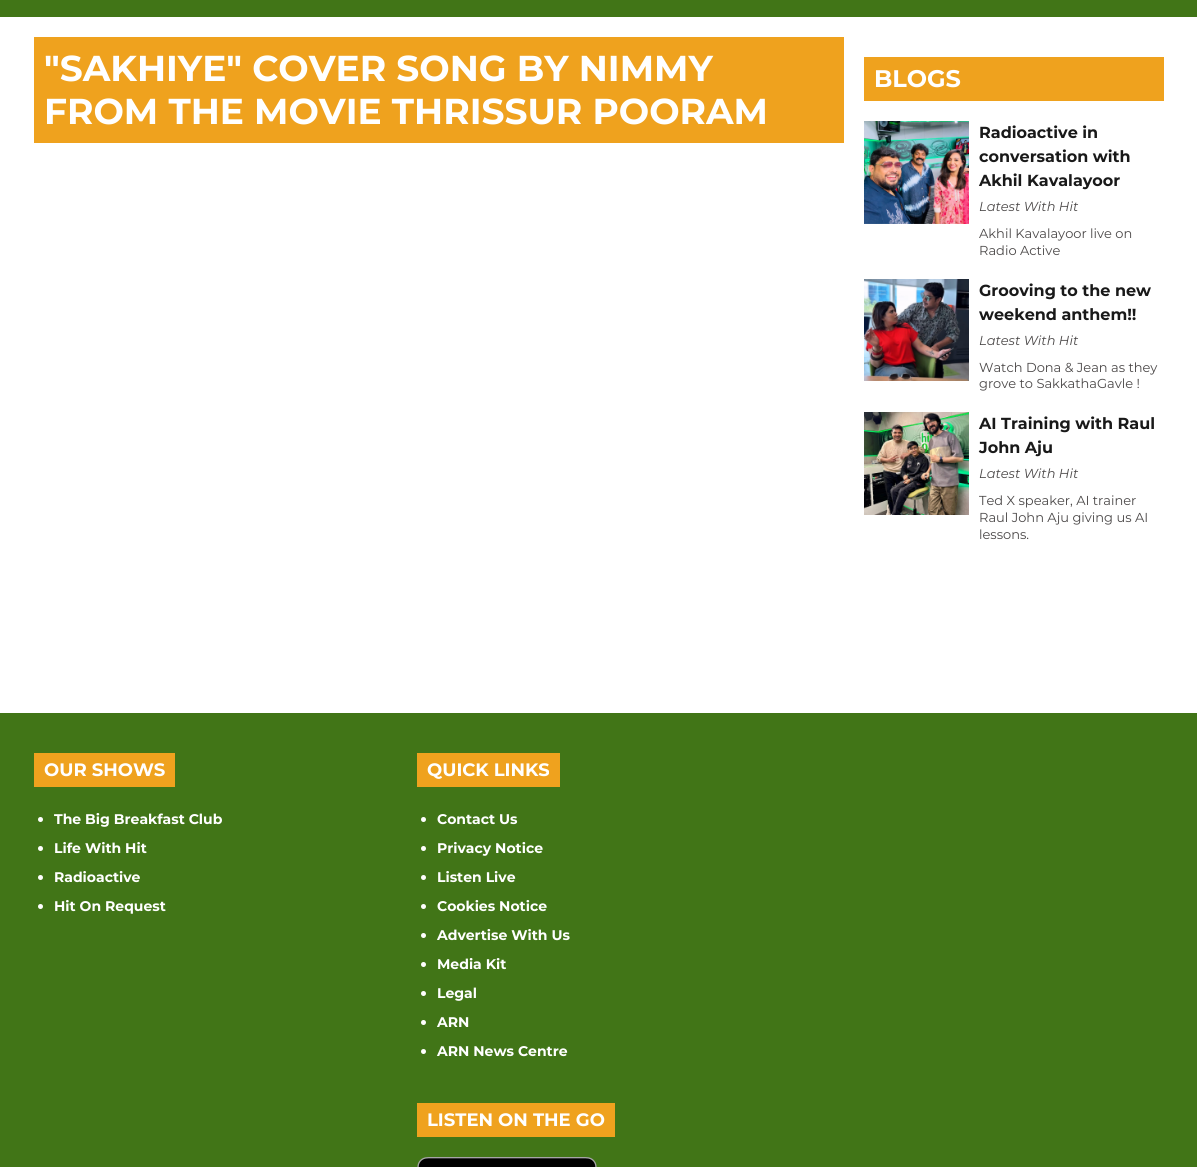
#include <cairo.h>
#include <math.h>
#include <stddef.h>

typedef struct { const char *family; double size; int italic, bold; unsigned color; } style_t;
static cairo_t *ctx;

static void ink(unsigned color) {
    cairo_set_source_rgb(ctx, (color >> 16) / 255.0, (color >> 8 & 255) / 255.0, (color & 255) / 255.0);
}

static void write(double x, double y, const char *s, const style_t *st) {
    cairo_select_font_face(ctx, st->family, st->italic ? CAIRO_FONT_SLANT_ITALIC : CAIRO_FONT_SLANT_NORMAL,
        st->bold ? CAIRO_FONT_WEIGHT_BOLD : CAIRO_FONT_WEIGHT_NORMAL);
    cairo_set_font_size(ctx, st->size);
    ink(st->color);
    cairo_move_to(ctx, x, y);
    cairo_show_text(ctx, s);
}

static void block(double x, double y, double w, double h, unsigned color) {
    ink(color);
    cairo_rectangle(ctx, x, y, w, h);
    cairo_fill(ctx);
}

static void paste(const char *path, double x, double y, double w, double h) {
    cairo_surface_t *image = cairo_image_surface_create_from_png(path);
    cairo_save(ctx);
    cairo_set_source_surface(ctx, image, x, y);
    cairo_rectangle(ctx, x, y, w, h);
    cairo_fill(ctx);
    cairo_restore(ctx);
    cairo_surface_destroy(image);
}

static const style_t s1 = {"Montserrat", 36, 0, 1, 0xffffff};
static const style_t s2 = {"Montserrat", 24, 0, 1, 0xffffff};
static const style_t s3 = {"Montserrat", 16, 0, 1, 0x191919};
static const style_t s4 = {"Montserrat", 13, 1, 0, 0x4b4848};
static const style_t s5 = {"Montserrat", 13, 0, 0, 0x4b4848};
static const style_t s6 = {"Montserrat", 18, 0, 1, 0xffffff};
static const style_t s7 = {"Montserrat", 14, 0, 1, 0xffffff};

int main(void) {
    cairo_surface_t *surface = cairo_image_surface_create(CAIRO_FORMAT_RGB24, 1197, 1167);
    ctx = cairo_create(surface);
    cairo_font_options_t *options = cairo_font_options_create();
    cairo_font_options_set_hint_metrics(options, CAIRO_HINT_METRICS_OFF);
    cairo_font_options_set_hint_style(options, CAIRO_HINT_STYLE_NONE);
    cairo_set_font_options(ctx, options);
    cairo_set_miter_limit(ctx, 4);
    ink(0xffffff);
    cairo_paint(ctx);
    block(0, 0, 1197, 17, 0x417517);
    block(34, 37, 810, 106, 0xefa21e);
    write(44, 81, "\"SAKHIYE\" COVER SONG BY NIMMY", &s1);
    write(44, 124, "FROM THE MOVIE THRISSUR POORAM", &s1);
    block(864, 57, 300, 44, 0xefa21e);
    write(874, 87, "BLOGS", &s2);
    paste("pic1.png", 864, 121, 105, 103);
    write(979, 138, "Radioactive in", &s3);
    write(979, 162, "conversation with", &s3);
    write(979, 186, "Akhil Kavalayoor", &s3);
    write(979, 211, "Latest With Hit", &s4);
    write(979, 238, "Akhil Kavalayoor live on", &s5);
    write(979, 255, "Radio Active", &s5);
    paste("pic2.png", 864, 279, 105, 102);
    write(979, 296, "Grooving to the new", &s3);
    write(979, 320, "weekend anthem!!", &s3);
    write(979, 345, "Latest With Hit", &s4);
    write(979, 372, "Watch Dona & Jean as they", &s5);
    write(979, 388, "grove to SakkathaGavle !", &s5);
    paste("pic3.png", 864, 412, 105, 103);
    write(979, 429, "AI Training with Raul", &s3);
    write(979, 453, "John Aju", &s3);
    write(979, 478, "Latest With Hit", &s4);
    write(979, 505, "Ted X speaker, AI trainer", &s5);
    write(979, 522, "Raul John Aju giving us AI", &s5);
    write(979, 539, "lessons.", &s5);
    block(0, 713, 1197, 454, 0x417517);
    block(34, 753, 141, 34, 0xefa21e);
    write(44, 776, "OUR SHOWS", &s6);
    cairo_new_path(ctx);
    cairo_arc(ctx, 40.5, 819.5, 2.5, 0, 2 * M_PI);
    cairo_fill(ctx);
    write(54, 824, "The Big Breakfast Club", &s7);
    cairo_new_path(ctx);
    cairo_arc(ctx, 40.5, 848.5, 2.5, 0, 2 * M_PI);
    cairo_fill(ctx);
    write(54, 853, "Life With Hit", &s7);
    cairo_new_path(ctx);
    cairo_arc(ctx, 40.5, 877.5, 2.5, 0, 2 * M_PI);
    cairo_fill(ctx);
    write(54, 882, "Radioactive", &s7);
    cairo_new_path(ctx);
    cairo_arc(ctx, 40.5, 906.5, 2.5, 0, 2 * M_PI);
    cairo_fill(ctx);
    write(54, 911, "Hit On Request", &s7);
    block(417, 753, 143, 34, 0xefa21e);
    write(427, 776, "QUICK LINKS", &s6);
    cairo_new_path(ctx);
    cairo_arc(ctx, 423.5, 819.5, 2.5, 0, 2 * M_PI);
    cairo_fill(ctx);
    write(437, 824, "Contact Us", &s7);
    cairo_new_path(ctx);
    cairo_arc(ctx, 423.5, 848.5, 2.5, 0, 2 * M_PI);
    cairo_fill(ctx);
    write(437, 853, "Privacy Notice", &s7);
    cairo_new_path(ctx);
    cairo_arc(ctx, 423.5, 877.5, 2.5, 0, 2 * M_PI);
    cairo_fill(ctx);
    write(437, 882, "Listen Live", &s7);
    cairo_new_path(ctx);
    cairo_arc(ctx, 423.5, 906.5, 2.5, 0, 2 * M_PI);
    cairo_fill(ctx);
    write(437, 911, "Cookies Notice", &s7);
    cairo_new_path(ctx);
    cairo_arc(ctx, 423.5, 935.5, 2.5, 0, 2 * M_PI);
    cairo_fill(ctx);
    write(437, 940, "Advertise With Us", &s7);
    cairo_new_path(ctx);
    cairo_arc(ctx, 423.5, 964.5, 2.5, 0, 2 * M_PI);
    cairo_fill(ctx);
    write(437, 969, "Media Kit", &s7);
    cairo_new_path(ctx);
    cairo_arc(ctx, 423.5, 993.5, 2.5, 0, 2 * M_PI);
    cairo_fill(ctx);
    write(437, 998, "Legal", &s7);
    cairo_new_path(ctx);
    cairo_arc(ctx, 423.5, 1022.5, 2.5, 0, 2 * M_PI);
    cairo_fill(ctx);
    write(437, 1027, "ARN", &s7);
    cairo_new_path(ctx);
    cairo_arc(ctx, 423.5, 1051.5, 2.5, 0, 2 * M_PI);
    cairo_fill(ctx);
    write(437, 1056, "ARN News Centre", &s7);
    block(417, 1103, 198, 34, 0xefa21e);
    write(427, 1126, "LISTEN ON THE GO", &s6);
    paste("pic4.png", 417, 1157, 180, 10);
    cairo_surface_write_to_png(surface, "screenshot.png");
    cairo_font_options_destroy(options);
    cairo_destroy(ctx);
    cairo_surface_destroy(surface);
    return 0;
}
